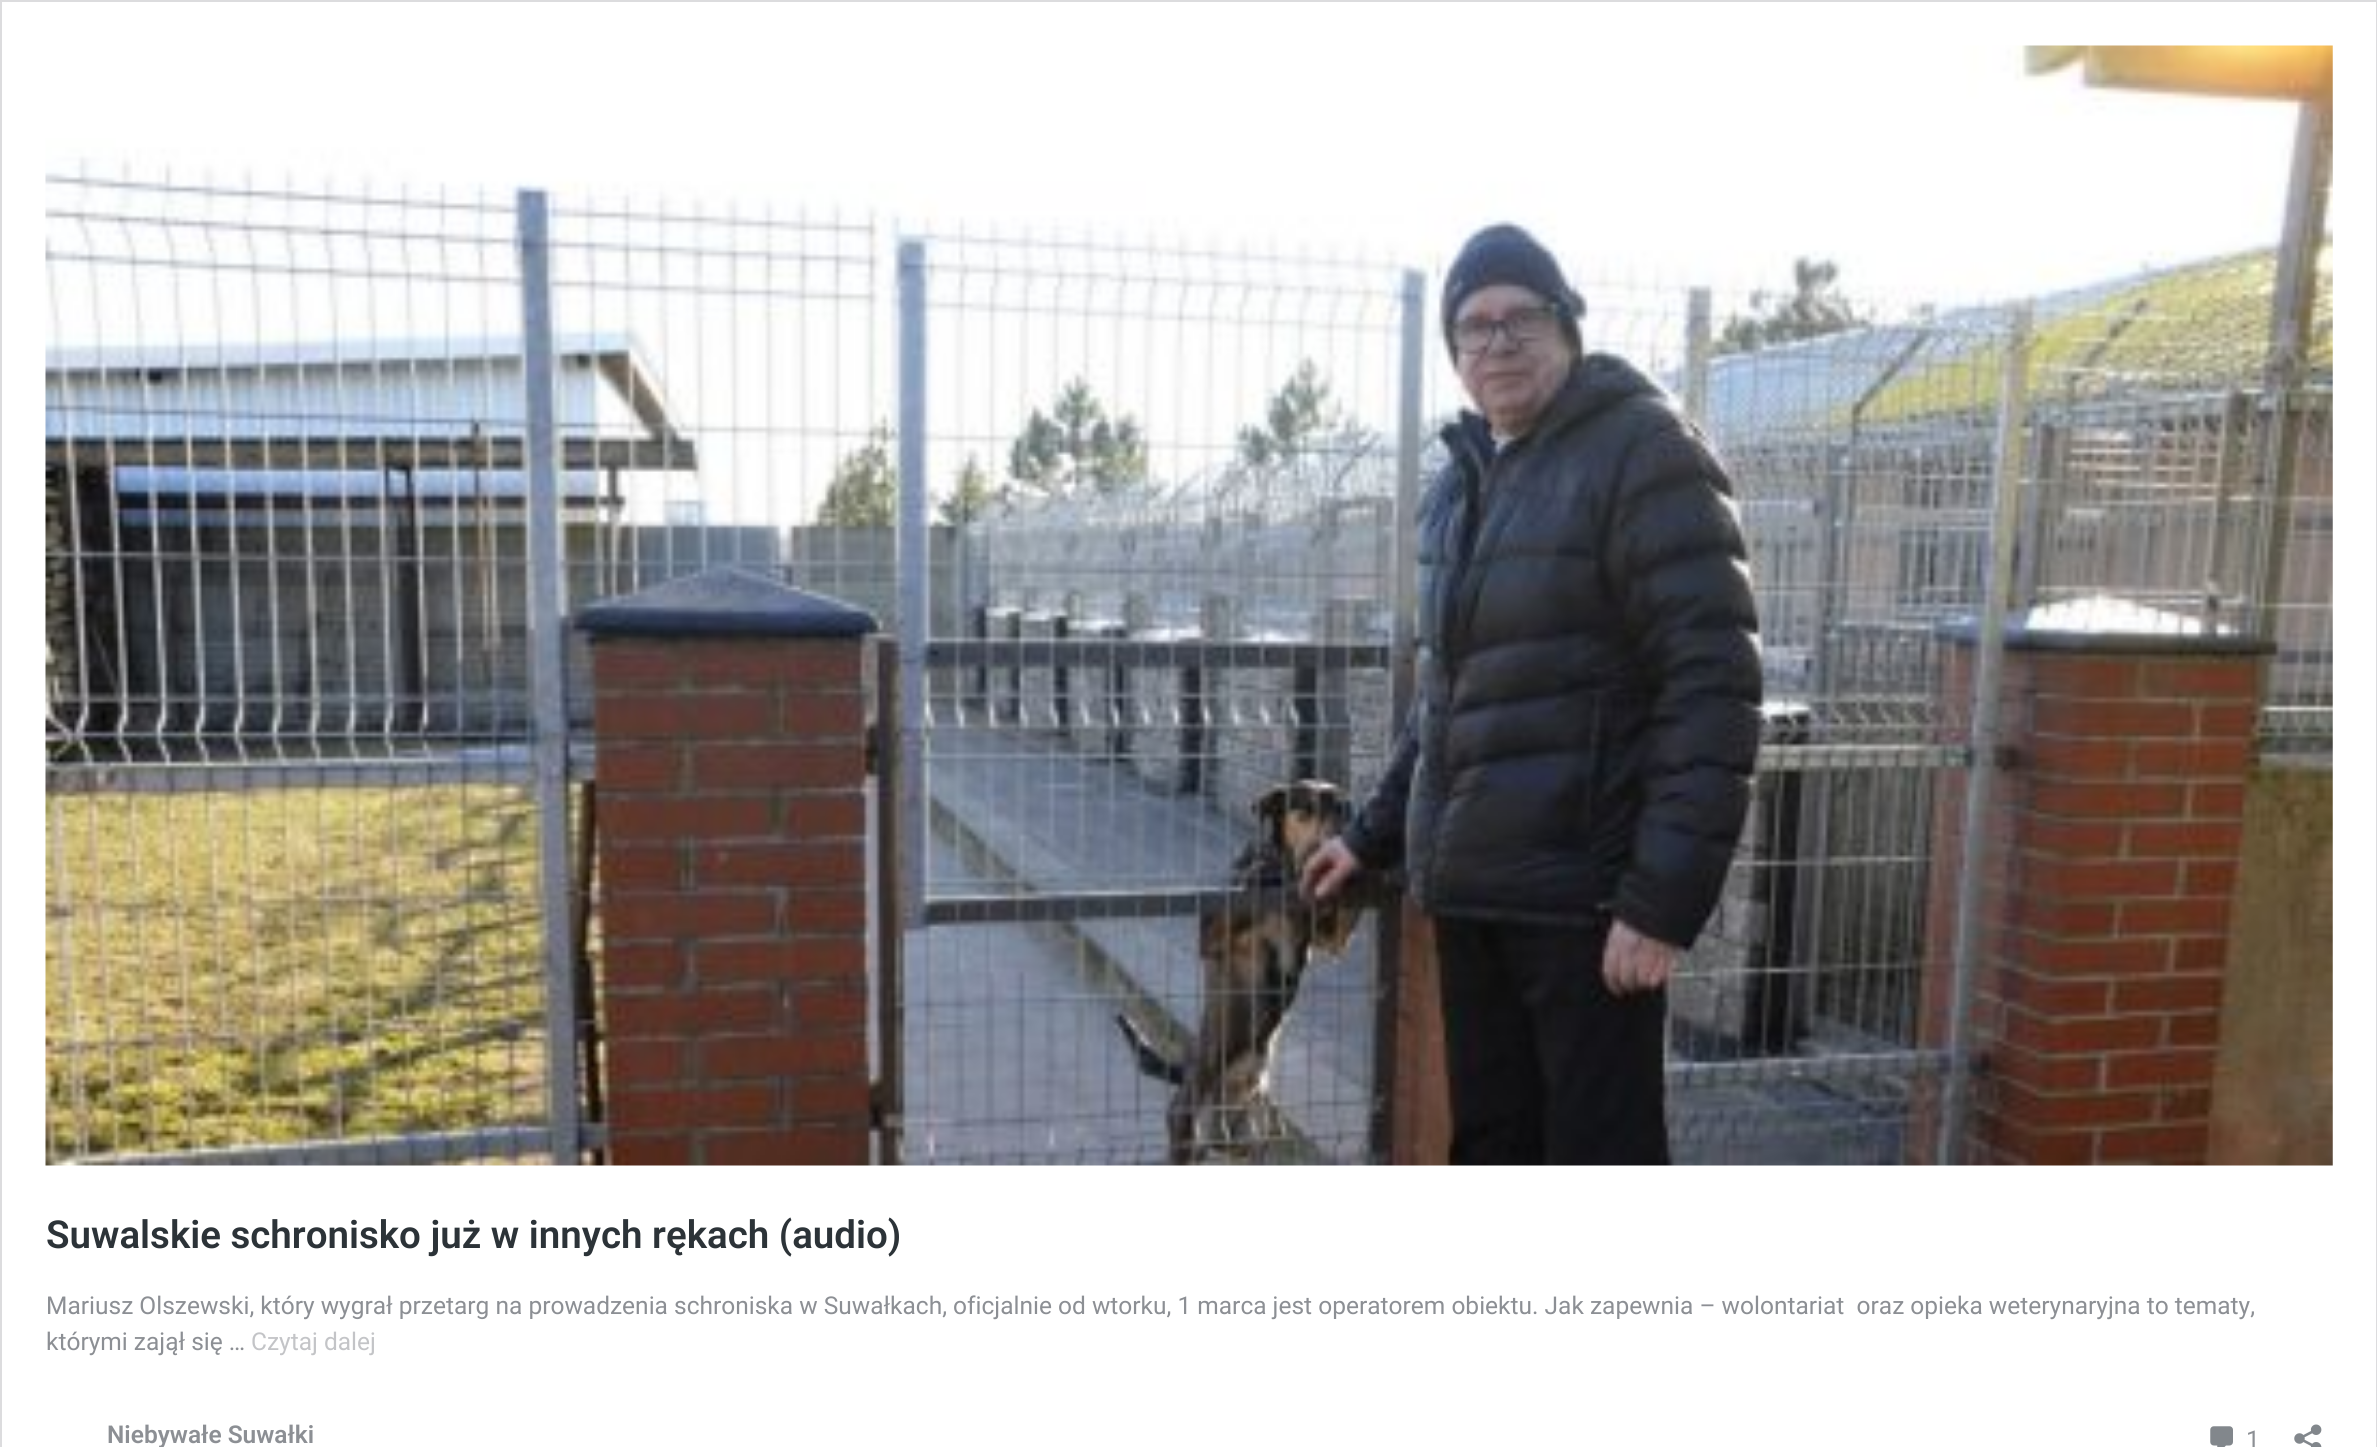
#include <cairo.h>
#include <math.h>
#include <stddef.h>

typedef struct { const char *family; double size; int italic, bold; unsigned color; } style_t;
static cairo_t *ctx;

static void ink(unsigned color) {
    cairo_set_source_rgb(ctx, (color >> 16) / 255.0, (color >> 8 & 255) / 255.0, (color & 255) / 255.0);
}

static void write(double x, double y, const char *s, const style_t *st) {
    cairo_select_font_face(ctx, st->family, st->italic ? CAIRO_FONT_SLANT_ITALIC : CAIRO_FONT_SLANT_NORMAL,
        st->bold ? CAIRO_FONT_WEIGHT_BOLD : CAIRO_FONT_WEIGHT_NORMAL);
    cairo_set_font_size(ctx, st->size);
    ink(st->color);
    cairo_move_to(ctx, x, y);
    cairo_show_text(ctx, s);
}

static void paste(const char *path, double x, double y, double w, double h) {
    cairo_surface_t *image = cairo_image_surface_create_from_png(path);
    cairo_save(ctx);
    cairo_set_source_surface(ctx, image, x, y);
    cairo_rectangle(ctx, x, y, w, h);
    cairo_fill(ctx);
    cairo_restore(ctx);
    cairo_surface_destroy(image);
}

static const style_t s1 = {"Roboto SemiBold", 38.5, 0, 0, 0x2c3338};
static const style_t s2 = {"Roboto", 24.5, 0, 0, 0x8c8f94};
static const style_t s3 = {"Roboto", 24.5, 0, 0, 0xc3c4c7};
static const style_t s4 = {"Roboto SemiBold", 24.5, 0, 0, 0x8c8f94};

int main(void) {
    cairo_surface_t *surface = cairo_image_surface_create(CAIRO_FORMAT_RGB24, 2377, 1447);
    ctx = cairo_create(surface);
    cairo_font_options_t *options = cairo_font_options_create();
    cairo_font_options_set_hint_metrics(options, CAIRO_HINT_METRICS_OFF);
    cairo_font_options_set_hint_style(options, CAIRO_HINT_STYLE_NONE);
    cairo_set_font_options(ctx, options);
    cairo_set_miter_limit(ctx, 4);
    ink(0xffffff);
    cairo_paint(ctx);
    cairo_rectangle(ctx, 1, 1, 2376, 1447);
    ink(0xdcdcde);
    cairo_stroke(ctx);
    paste("pic1.png", 45, 45, 2288, 1121);
    write(46, 1248, "Suwalskie schronisko już w innych rękach (audio)", &s1);
    write(46, 1314, "Mariusz Olszewski, który wygrał przetarg na prowadzenia schroniska w Suwałkach, oficjalnie od wtorku, 1 marca jest operatorem obiektu. Jak zapewnia – wolontariat  oraz opieka weterynaryjna to tematy,", &s2);
    write(46, 1350, "którymi zajął się …", &s2);
    write(251, 1350, "Czytaj dalej", &s3);
    write(107, 1443, "Niebywałe Suwałki", &s4);
    paste("pic2.png", 2210, 1426, 23, 21);
    write(2246, 1448, "1", &s2);
    paste("pic3.png", 2294, 1424, 28, 23);
    cairo_surface_write_to_png(surface, "screenshot.png");
    cairo_font_options_destroy(options);
    cairo_destroy(ctx);
    cairo_surface_destroy(surface);
    return 0;
}
